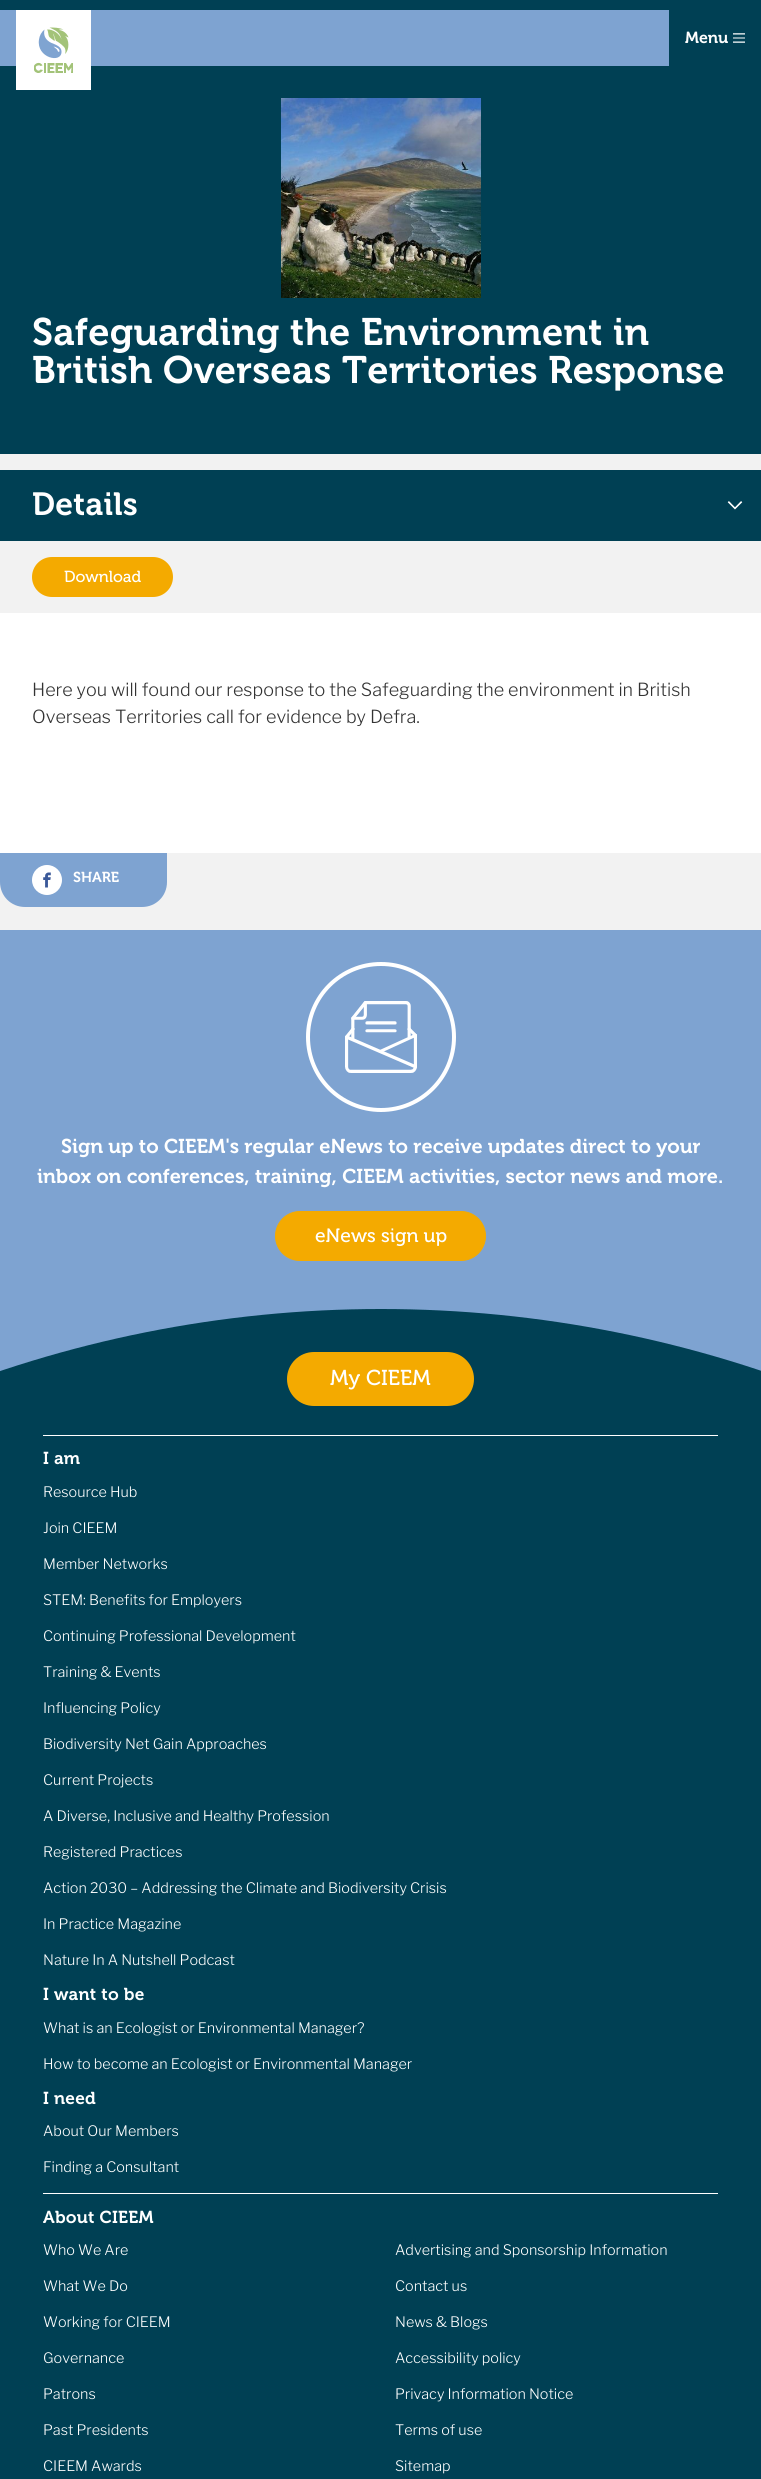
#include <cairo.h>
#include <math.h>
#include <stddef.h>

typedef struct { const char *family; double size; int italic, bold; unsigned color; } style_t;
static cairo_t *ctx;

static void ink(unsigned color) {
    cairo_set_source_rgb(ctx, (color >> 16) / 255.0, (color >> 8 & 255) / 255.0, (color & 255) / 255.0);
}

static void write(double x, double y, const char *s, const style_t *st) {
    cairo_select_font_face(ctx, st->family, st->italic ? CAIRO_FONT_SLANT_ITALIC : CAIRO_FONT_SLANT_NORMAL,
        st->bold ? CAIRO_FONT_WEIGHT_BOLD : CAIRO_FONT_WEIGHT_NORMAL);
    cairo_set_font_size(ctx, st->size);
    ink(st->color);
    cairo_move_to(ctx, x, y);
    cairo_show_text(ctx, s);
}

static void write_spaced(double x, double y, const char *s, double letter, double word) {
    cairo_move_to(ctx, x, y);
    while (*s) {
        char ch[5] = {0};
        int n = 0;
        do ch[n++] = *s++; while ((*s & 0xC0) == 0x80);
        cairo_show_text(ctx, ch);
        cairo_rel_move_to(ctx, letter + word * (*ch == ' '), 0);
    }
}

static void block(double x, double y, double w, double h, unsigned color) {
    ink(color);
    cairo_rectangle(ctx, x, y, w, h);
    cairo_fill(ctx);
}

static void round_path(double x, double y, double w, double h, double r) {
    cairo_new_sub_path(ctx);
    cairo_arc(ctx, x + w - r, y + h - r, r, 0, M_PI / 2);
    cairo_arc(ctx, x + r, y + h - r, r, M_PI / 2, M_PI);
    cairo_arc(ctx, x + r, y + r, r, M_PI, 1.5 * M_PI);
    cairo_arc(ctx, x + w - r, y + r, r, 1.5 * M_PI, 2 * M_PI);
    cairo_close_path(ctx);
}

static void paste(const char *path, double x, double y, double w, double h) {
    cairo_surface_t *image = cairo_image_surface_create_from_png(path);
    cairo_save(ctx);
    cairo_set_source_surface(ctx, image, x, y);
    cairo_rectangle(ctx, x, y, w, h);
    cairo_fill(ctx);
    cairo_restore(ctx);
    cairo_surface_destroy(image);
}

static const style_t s1 = {"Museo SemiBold", 16, 0, 0, 0xffffff};
static const style_t s2 = {"Museo", 16, 0, 0, 0xffffff};
static const style_t s3 = {"Libre Franklin Light", 18, 0, 0, 0x333333};
static const style_t s4 = {"Museo SemiBold", 14.4, 0, 0, 0xffffff};
static const style_t s5 = {"Museo SemiBold", 20, 0, 0, 0xffffff};
static const style_t s6 = {"Museo", 19.25, 0, 0, 0xffffff};
static const style_t s7 = {"Museo", 21.5, 0, 0, 0xffffff};
static const style_t s8 = {"Libre Franklin Light", 14.4, 0, 0, 0xffffff};

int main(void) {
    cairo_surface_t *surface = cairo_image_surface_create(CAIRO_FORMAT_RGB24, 761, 2479);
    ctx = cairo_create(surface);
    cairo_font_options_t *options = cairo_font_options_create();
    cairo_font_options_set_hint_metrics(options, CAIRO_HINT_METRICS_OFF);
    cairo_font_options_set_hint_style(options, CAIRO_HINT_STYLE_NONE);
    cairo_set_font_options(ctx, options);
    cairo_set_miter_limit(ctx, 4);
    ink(0xf2f2f2);
    cairo_paint(ctx);
    block(0, 10, 669, 56, 0x7ea3d1);
    block(0, 0, 761, 10, 0x004054);
    block(0, 66, 761, 388, 0x004054);
    block(16, 10, 75, 80, 0xffffff);
    ink(0x7fa4d1);
    cairo_set_fill_rule(ctx, CAIRO_FILL_RULE_EVEN_ODD);
    cairo_new_path(ctx);
    cairo_move_to(ctx, 53, 43.5);
    cairo_curve_to(ctx, 56.5, 45, 61.5, 47, 61.5, 51.5);
    cairo_curve_to(ctx, 62, 64, 36, 58, 39, 39.5);
    cairo_curve_to(ctx, 39.5, 35.5, 41.5, 32, 44.5, 29.5);
    cairo_curve_to(ctx, 42, 40.5, 53, 43.5, 53, 43.5);
    cairo_close_path(ctx);
    cairo_move_to(ctx, 59.5, 51);
    cairo_curve_to(ctx, 59.5, 48.5, 56, 47, 53.5, 46.5);
    cairo_line_to(ctx, 57, 49.5);
    cairo_line_to(ctx, 58, 51.5);
    cairo_curve_to(ctx, 58.5, 52, 59.5, 52, 59.5, 51);
    cairo_close_path(ctx);
    cairo_fill(ctx);
    cairo_save(ctx);
    cairo_set_fill_rule(ctx, CAIRO_FILL_RULE_WINDING);
    cairo_rectangle(ctx, 34, 27, 39, 46);
    cairo_clip(ctx);
    ink(0xa3c379);
    cairo_new_path(ctx);
    cairo_move_to(ctx, 40.5, 66);
    cairo_line_to(ctx, 42.5, 65.5);
    cairo_curve_to(ctx, 39.5, 59.5, 30.5, 65, 34.5, 71);
    cairo_curve_to(ctx, 35, 72, 36, 72.5, 37.5, 73);
    cairo_curve_to(ctx, 39.5, 73.5, 42, 72, 43, 70);
    cairo_line_to(ctx, 40.5, 69.5);
    cairo_curve_to(ctx, 37.5, 73.5, 33, 66, 38, 65.5);
    cairo_curve_to(ctx, 39, 65, 40, 65.5, 40.5, 66);
    cairo_close_path(ctx);
    cairo_fill(ctx);
    cairo_restore(ctx);
    block(44, 63, 2, 10, 0xa3c379);
    cairo_set_fill_rule(ctx, CAIRO_FILL_RULE_WINDING);
    cairo_new_path(ctx);
    cairo_move_to(ctx, 54.5, 71);
    cairo_line_to(ctx, 50, 71);
    cairo_line_to(ctx, 50, 69);
    cairo_line_to(ctx, 53.5, 69);
    cairo_line_to(ctx, 53.5, 67);
    cairo_line_to(ctx, 50, 67);
    cairo_line_to(ctx, 50, 65.5);
    cairo_line_to(ctx, 54.5, 65.5);
    cairo_line_to(ctx, 54.5, 63);
    cairo_line_to(ctx, 47.5, 63);
    cairo_line_to(ctx, 47.5, 73);
    cairo_line_to(ctx, 54.5, 73);
    cairo_close_path(ctx);
    cairo_move_to(ctx, 63, 71);
    cairo_line_to(ctx, 58, 71);
    cairo_line_to(ctx, 58, 69);
    cairo_line_to(ctx, 62, 69);
    cairo_line_to(ctx, 62, 67);
    cairo_line_to(ctx, 58, 67);
    cairo_line_to(ctx, 58, 65.5);
    cairo_line_to(ctx, 63, 65.5);
    cairo_line_to(ctx, 63, 63);
    cairo_line_to(ctx, 55.5, 63);
    cairo_line_to(ctx, 55.5, 73);
    cairo_line_to(ctx, 63, 73);
    cairo_close_path(ctx);
    cairo_fill(ctx);
    cairo_save(ctx);
    cairo_rectangle(ctx, 34, 27, 39, 46);
    cairo_clip(ctx);
    cairo_new_path(ctx);
    cairo_move_to(ctx, 73.5, 63);
    cairo_line_to(ctx, 71.5, 63);
    cairo_line_to(ctx, 68.5, 67.5);
    cairo_line_to(ctx, 66, 63);
    cairo_line_to(ctx, 64, 63);
    cairo_line_to(ctx, 64, 73);
    cairo_line_to(ctx, 66, 73);
    cairo_line_to(ctx, 66, 67.5);
    cairo_line_to(ctx, 68, 70.5);
    cairo_line_to(ctx, 69, 70.5);
    cairo_line_to(ctx, 71.5, 67.5);
    cairo_line_to(ctx, 71, 73);
    cairo_line_to(ctx, 73.5, 73);
    cairo_close_path(ctx);
    cairo_fill(ctx);
    cairo_restore(ctx);
    cairo_new_path(ctx);
    cairo_move_to(ctx, 64, 47);
    cairo_curve_to(ctx, 65.5, 48.5, 66, 51.5, 65, 54);
    cairo_curve_to(ctx, 69.5, 50, 69.5, 39.5, 65, 36);
    cairo_line_to(ctx, 68.5, 37.5);
    cairo_curve_to(ctx, 67, 33.5, 63.5, 30.5, 59, 30);
    cairo_curve_to(ctx, 60, 29, 62.5, 29.5, 63.5, 29.5);
    cairo_curve_to(ctx, 58.5, 27.5, 54, 27.5, 49.5, 27.5);
    cairo_curve_to(ctx, 55.5, 30.5, 60, 32, 61.5, 39.5);
    cairo_curve_to(ctx, 60, 34, 53, 29, 47, 29.5);
    cairo_curve_to(ctx, 48.5, 31.5, 48, 34.5, 49, 36.5);
    cairo_curve_to(ctx, 50, 38, 52, 39, 54.5, 41);
    cairo_curve_to(ctx, 55.5, 38.5, 52.5, 35.5, 54, 33.5);
    cairo_curve_to(ctx, 53.5, 36, 55.5, 39, 56, 41);
    cairo_curve_to(ctx, 56, 40.5, 61.5, 44, 64, 47);
    cairo_close_path(ctx);
    cairo_fill(ctx);
    block(669, 10, 92, 56, 0x004054);
    write(685, 43, "Menu", &s1);
    paste("pic1.png", 733, 33, 12, 10);
    paste("pic2.png", 281, 98, 200, 200);
    cairo_set_font_size(ctx, 38.2);
    write_spaced(32, 345, "Safeguarding the Environment in", 0.25, 0);
    write_spaced(32, 383, "British Overseas Territories Response", 0.25, 0);
    block(0, 470, 761, 71, 0x004054);
    cairo_set_font_size(ctx, 32);
    ink(0xffffff);
    write_spaced(32, 515, "Details", 0.25, 0);
    paste("pic3.png", 727, 501, 16, 9);
    ink(0xf4aa00);
    round_path(32, 557, 141, 40, 20);
    cairo_fill(ctx);
    write(64, 582, "Download", &s2);
    block(0, 613, 761, 240, 0xffffff);
    write(32, 696, "Here you will found our response to the Safeguarding the environment in British", &s3);
    write(32, 723, "Overseas Territories call for evidence by Defra.", &s3);
    ink(0x7ea3d1);
    cairo_new_path(ctx);
    cairo_move_to(ctx, 0, 853);
    cairo_line_to(ctx, 167, 853);
    cairo_line_to(ctx, 167, 882);
    cairo_curve_to(ctx, 167, 896, 156, 907, 142, 907);
    cairo_line_to(ctx, 25, 907);
    cairo_curve_to(ctx, 11, 907, 0, 896, 0, 882);
    cairo_close_path(ctx);
    cairo_fill(ctx);
    ink(0xffffff);
    cairo_arc(ctx, 47, 880, 15, 0, 2 * M_PI);
    cairo_fill(ctx);
    paste("pic4.png", 43, 872, 8, 16);
    write(73, 882, "SHARE", &s4);
    block(0, 930, 761, 441, 0x7ea3d1);
    cairo_new_path(ctx);
    cairo_arc(ctx, 381, 1037, 73, 0, 2 * M_PI);
    ink(0xffffff);
    cairo_set_line_width(ctx, 4);
    cairo_stroke(ctx);
    paste("pic5.png", 345, 1001, 72, 72);
    write(61, 1153, "Sign up to CIEEM's regular eNews to receive updates direct to your", &s5);
    write(37, 1183, "inbox on conferences, training, CIEEM activities, sector news and more.", &s5);
    ink(0xf4aa00);
    round_path(275.5, 1211.5, 210, 49, 24.5);
    cairo_fill_preserve(ctx);
    cairo_set_line_width(ctx, 1);
    cairo_stroke(ctx);
    write(315, 1242, "eNews sign up", &s6);
    block(0, 1709, 761, 770, 0x004054);
    cairo_save(ctx);
    cairo_rectangle(ctx, 0, 1309, 761, 400);
    cairo_clip(ctx);
    round_path(-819, 1309, 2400, 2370, 1200);
    cairo_fill(ctx);
    cairo_restore(ctx);
    ink(0xf4aa00);
    round_path(287, 1352, 187, 54, 27);
    cairo_fill(ctx);
    write(330, 1385, "My CIEEM", &s7);
    block(43, 1435, 675, 1, 0xffffff);
    cairo_select_font_face(ctx, "Museo SemiBold", CAIRO_FONT_SLANT_NORMAL, CAIRO_FONT_WEIGHT_NORMAL);
    cairo_set_font_size(ctx, 17.25);
    write_spaced(43, 1464, "I am", 0.25, 0);
    write(43, 1497, "Resource Hub", &s8);
    write(43, 1533, "Join CIEEM", &s8);
    write(43, 1569, "Member Networks", &s8);
    write(43, 1605, "STEM: Benefits for Employers", &s8);
    write(43, 1641, "Continuing Professional Development", &s8);
    write(43, 1677, "Training & Events", &s8);
    write(43, 1713, "Influencing Policy", &s8);
    write(43, 1749, "Biodiversity Net Gain Approaches", &s8);
    write(43, 1785, "Current Projects", &s8);
    write(43, 1821, "A Diverse, Inclusive and Healthy Profession", &s8);
    write(43, 1857, "Registered Practices", &s8);
    write(43, 1893, "Action 2030 – Addressing the Climate and Biodiversity Crisis", &s8);
    write(43, 1929, "In Practice Magazine", &s8);
    write(43, 1965, "Nature In A Nutshell Podcast", &s8);
    cairo_select_font_face(ctx, "Museo SemiBold", CAIRO_FONT_SLANT_NORMAL, CAIRO_FONT_WEIGHT_NORMAL);
    cairo_set_font_size(ctx, 17.25);
    write_spaced(43, 2000, "I want to be", 0.25, 0);
    write(43, 2033, "What is an Ecologist or Environmental Manager?", &s8);
    write(43, 2069, "How to become an Ecologist or Environmental Manager", &s8);
    cairo_select_font_face(ctx, "Museo SemiBold", CAIRO_FONT_SLANT_NORMAL, CAIRO_FONT_WEIGHT_NORMAL);
    cairo_set_font_size(ctx, 17.25);
    write_spaced(43, 2104, "I need", 0.25, 0);
    write(43, 2136, "About Our Members", &s8);
    write(43, 2172, "Finding a Consultant", &s8);
    block(43, 2193, 675, 1, 0xffffff);
    cairo_select_font_face(ctx, "Museo SemiBold", CAIRO_FONT_SLANT_NORMAL, CAIRO_FONT_WEIGHT_NORMAL);
    cairo_set_font_size(ctx, 17.25);
    write_spaced(43, 2223, "About CIEEM", 0.25, 0);
    write(43, 2255, "Who We Are", &s8);
    write(395, 2255, "Advertising and Sponsorship Information", &s8);
    write(43, 2291, "What We Do", &s8);
    write(395, 2291, "Contact us", &s8);
    write(43, 2327, "Working for CIEEM", &s8);
    write(395, 2327, "News & Blogs", &s8);
    write(43, 2363, "Governance", &s8);
    write(395, 2363, "Accessibility policy", &s8);
    write(43, 2399, "Patrons", &s8);
    write(395, 2399, "Privacy Information Notice", &s8);
    write(43, 2435, "Past Presidents", &s8);
    write(395, 2435, "Terms of use", &s8);
    write(43, 2471, "CIEEM Awards", &s8);
    write(395, 2471, "Sitemap", &s8);
    cairo_surface_write_to_png(surface, "screenshot.png");
    cairo_font_options_destroy(options);
    cairo_destroy(ctx);
    cairo_surface_destroy(surface);
    return 0;
}
